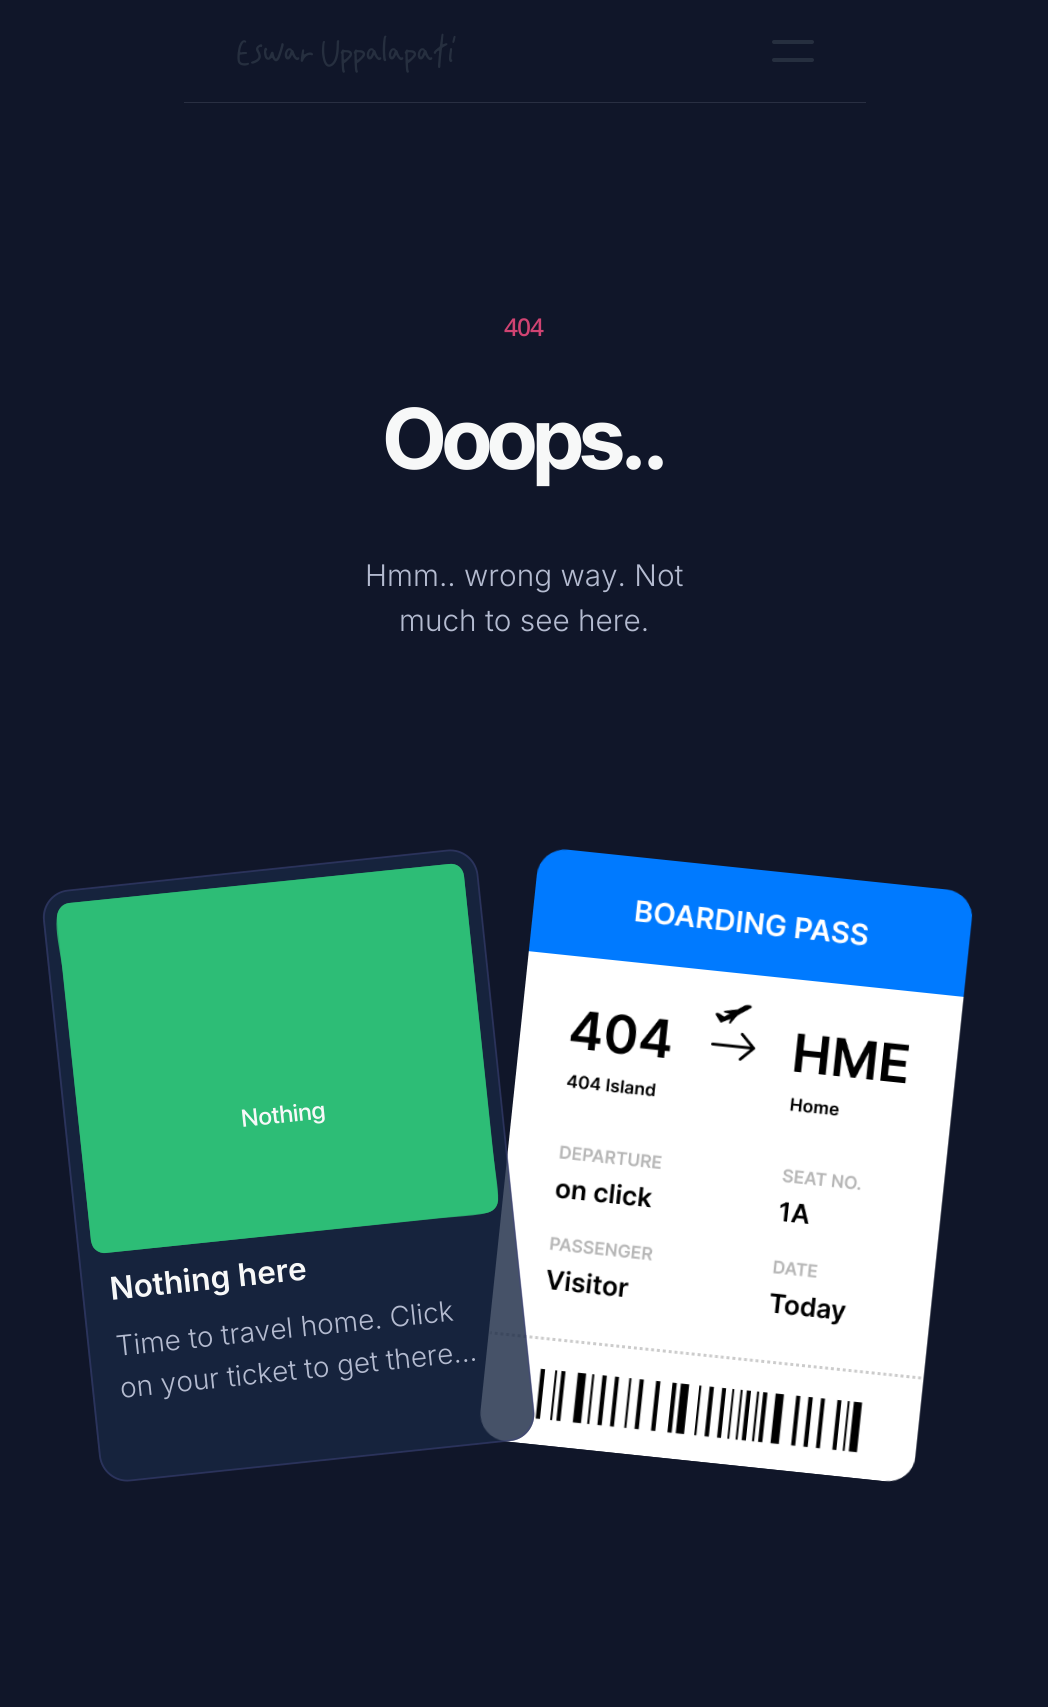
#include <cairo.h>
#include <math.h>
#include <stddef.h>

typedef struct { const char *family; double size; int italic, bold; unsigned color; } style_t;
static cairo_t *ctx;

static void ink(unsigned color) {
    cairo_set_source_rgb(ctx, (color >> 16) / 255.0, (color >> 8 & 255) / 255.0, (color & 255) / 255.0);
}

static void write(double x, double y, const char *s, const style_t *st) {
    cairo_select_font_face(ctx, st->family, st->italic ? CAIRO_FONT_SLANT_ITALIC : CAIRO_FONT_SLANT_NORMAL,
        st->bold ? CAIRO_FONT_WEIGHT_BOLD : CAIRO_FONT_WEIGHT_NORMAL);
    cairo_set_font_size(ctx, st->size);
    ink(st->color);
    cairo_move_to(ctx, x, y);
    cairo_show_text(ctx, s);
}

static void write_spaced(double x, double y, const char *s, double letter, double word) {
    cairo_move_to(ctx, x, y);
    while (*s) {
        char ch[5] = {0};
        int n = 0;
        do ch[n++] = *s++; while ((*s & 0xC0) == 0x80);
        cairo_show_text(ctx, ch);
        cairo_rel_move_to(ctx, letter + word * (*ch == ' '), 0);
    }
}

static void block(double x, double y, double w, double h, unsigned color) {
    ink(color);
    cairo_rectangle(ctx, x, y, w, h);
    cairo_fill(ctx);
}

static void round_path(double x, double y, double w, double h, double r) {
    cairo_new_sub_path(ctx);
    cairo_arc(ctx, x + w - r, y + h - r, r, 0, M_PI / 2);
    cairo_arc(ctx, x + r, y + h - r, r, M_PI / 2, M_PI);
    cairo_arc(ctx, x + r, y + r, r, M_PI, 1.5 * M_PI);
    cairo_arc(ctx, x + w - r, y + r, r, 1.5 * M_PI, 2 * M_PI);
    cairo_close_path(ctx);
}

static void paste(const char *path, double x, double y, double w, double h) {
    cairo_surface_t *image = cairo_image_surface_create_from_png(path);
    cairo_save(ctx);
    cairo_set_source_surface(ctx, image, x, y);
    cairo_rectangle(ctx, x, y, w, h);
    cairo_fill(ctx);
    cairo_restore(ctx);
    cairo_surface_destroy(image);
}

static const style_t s1 = {"Inter Light", 29.75, 0, 0, 0xb4bbd0};
static const style_t s2 = {"SF Pro Display Medium", 24.5, 0, 0, 0xf7f8f8};
static const style_t s3 = {"Inter SemiBold", 31.5, 0, 0, 0xf7f8f8};
static const style_t s4 = {"Inter Light", 28, 0, 0, 0xb4bbd0};

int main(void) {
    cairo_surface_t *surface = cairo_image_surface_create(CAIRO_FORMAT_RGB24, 1048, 1707);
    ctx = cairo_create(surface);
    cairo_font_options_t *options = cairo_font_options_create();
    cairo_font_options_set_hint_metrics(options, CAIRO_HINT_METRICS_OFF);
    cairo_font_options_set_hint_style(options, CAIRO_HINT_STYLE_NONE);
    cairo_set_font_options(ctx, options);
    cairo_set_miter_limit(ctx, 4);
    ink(0x101629);
    cairo_paint(ctx);
    cairo_select_font_face(ctx, "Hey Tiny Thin", CAIRO_FONT_SLANT_NORMAL, CAIRO_FONT_WEIGHT_NORMAL);
    cairo_set_font_size(ctx, 38.5);
    ink(0x262f3f);
    write_spaced(235, 68, "Eswar Uppalapati", -3.5, 0);
    round_path(772, 40, 42, 4, 2);
    cairo_fill(ctx);
    round_path(772, 58, 42, 4, 2);
    cairo_fill(ctx);
    block(184, 102, 682, 1, 0x292f42);
    cairo_select_font_face(ctx, "Noto Sans Medium", CAIRO_FONT_SLANT_NORMAL, CAIRO_FONT_WEIGHT_NORMAL);
    cairo_set_font_size(ctx, 24.5);
    ink(0xd04372);
    write_spaced(504, 336, "404", -1, 0);
    cairo_select_font_face(ctx, "Inter Tight", CAIRO_FONT_SLANT_NORMAL, CAIRO_FONT_WEIGHT_BOLD);
    cairo_set_font_size(ctx, 84);
    ink(0xf7f8f8);
    write_spaced(383, 469, "Ooops..", -3.5, 0);
    write(365, 586, "Hmm.. wrong way. Not", &s1);
    write(399, 631, "much to see here.", &s1);
    paste("pic1.png", 479, 849, 494, 633);
    cairo_set_source_rgba(ctx, 0.094, 0.153, 0.259, 0.8);
    cairo_new_path(ctx);
    cairo_move_to(ctx, 68, 890);
    cairo_line_to(ctx, 447, 850);
    cairo_curve_to(ctx, 463, 848, 477, 859, 478, 875);
    cairo_line_to(ctx, 534, 1411);
    cairo_curve_to(ctx, 536, 1426, 525, 1440, 510, 1441);
    cairo_line_to(ctx, 130, 1481);
    cairo_curve_to(ctx, 115, 1483, 101, 1472, 99, 1456);
    cairo_line_to(ctx, 43, 920);
    cairo_curve_to(ctx, 41, 905, 53, 891, 68, 890);
    cairo_close_path(ctx);
    cairo_fill(ctx);
    ink(0x2aa36c);
    cairo_new_path(ctx);
    cairo_move_to(ctx, 69, 903);
    cairo_line_to(ctx, 449, 864);
    cairo_curve_to(ctx, 457, 863, 463, 868, 464, 876);
    cairo_line_to(ctx, 498, 1198);
    cairo_curve_to(ctx, 499, 1206, 493, 1212, 486, 1213);
    cairo_line_to(ctx, 106, 1253);
    cairo_curve_to(ctx, 98, 1254, 92, 1248, 91, 1241);
    cairo_line_to(ctx, 57, 919);
    cairo_curve_to(ctx, 56, 911, 62, 904, 69, 903);
    cairo_close_path(ctx);
    cairo_fill(ctx);
    cairo_new_path(ctx);
    cairo_move_to(ctx, 68, 890.5);
    cairo_line_to(ctx, 447.5, 850.5);
    cairo_curve_to(ctx, 462.5, 849, 475.5, 860, 477.5, 874.5);
    cairo_line_to(ctx, 533.5, 1410.5);
    cairo_curve_to(ctx, 535, 1425.5, 524.5, 1439, 509.5, 1440.5);
    cairo_line_to(ctx, 130, 1480.5);
    cairo_curve_to(ctx, 115, 1482, 102, 1471, 100, 1456.5);
    cairo_line_to(ctx, 44, 920.5);
    cairo_curve_to(ctx, 42.5, 905.5, 53, 892, 68, 890.5);
    cairo_close_path(ctx);
    cairo_set_source_rgba(ctx, 0.251, 0.271, 0.49, 0.5);
    cairo_set_line_width(ctx, 1.8);
    cairo_stroke(ctx);
    cairo_set_source_rgba(ctx, 0.184, 0.765, 0.471, 0.8);
    cairo_new_path(ctx);
    cairo_move_to(ctx, 69, 903);
    cairo_curve_to(ctx, 47, 906, 60, 946, 63, 973);
    cairo_line_to(ctx, 91, 1241);
    cairo_line_to(ctx, 93, 1247);
    cairo_curve_to(ctx, 96, 1251, 100, 1253, 105, 1253);
    cairo_line_to(ctx, 423, 1220);
    cairo_curve_to(ctx, 513, 1210, 501, 1225, 492, 1144);
    cairo_line_to(ctx, 464, 876);
    cairo_curve_to(ctx, 463, 868, 457, 863, 449, 864);
    cairo_line_to(ctx, 285, 881);
    cairo_close_path(ctx);
    cairo_fill(ctx);
    cairo_save(ctx);
    cairo_translate(ctx, 242, 1127);
    cairo_rotate(ctx, -6 * M_PI / 180);
    write(0, 0, "Nothing", &s2);
    cairo_restore(ctx);
    cairo_save(ctx);
    cairo_translate(ctx, 111, 1300);
    cairo_rotate(ctx, -6 * M_PI / 180);
    write(0, 0, "Nothing here", &s3);
    cairo_restore(ctx);
    cairo_save(ctx);
    cairo_translate(ctx, 117, 1356);
    cairo_rotate(ctx, -6 * M_PI / 180);
    write(0, 0, "Time to travel home. Click", &s4);
    cairo_restore(ctx);
    cairo_save(ctx);
    cairo_translate(ctx, 121, 1398);
    cairo_rotate(ctx, -6 * M_PI / 180);
    write(0, 0, "on your ticket to get there...", &s4);
    cairo_restore(ctx);
    cairo_surface_write_to_png(surface, "screenshot.png");
    cairo_font_options_destroy(options);
    cairo_destroy(ctx);
    cairo_surface_destroy(surface);
    return 0;
}
